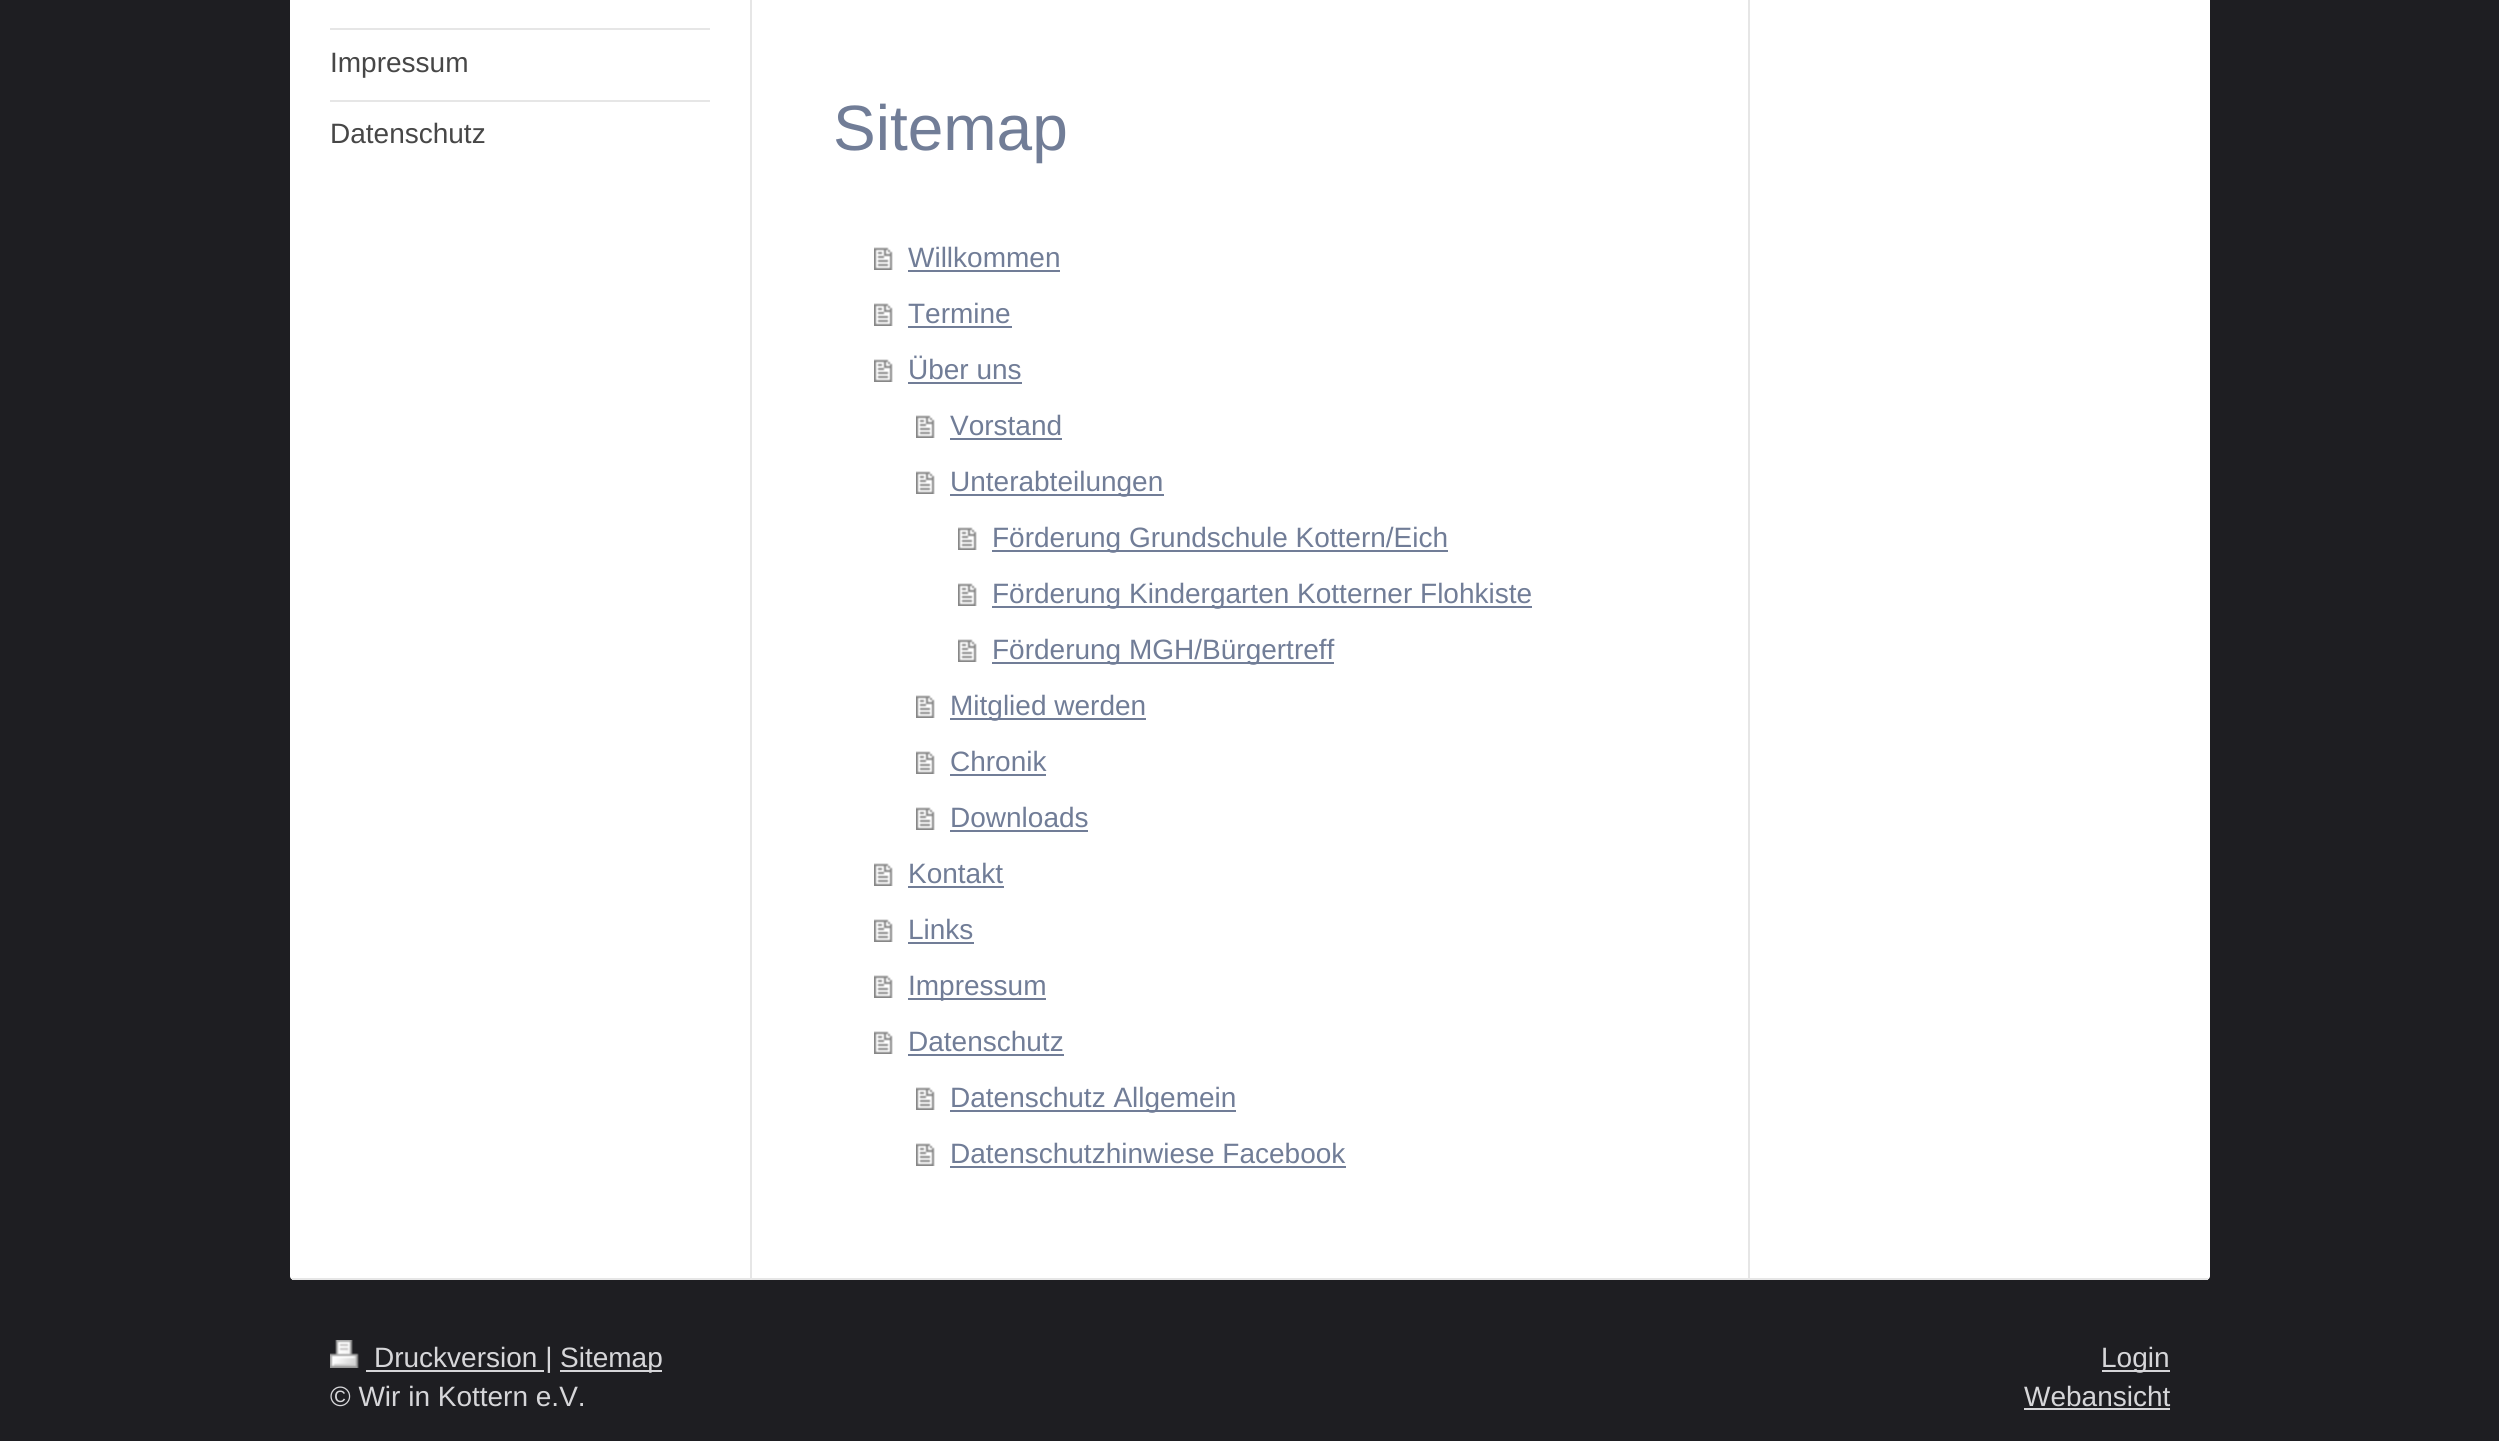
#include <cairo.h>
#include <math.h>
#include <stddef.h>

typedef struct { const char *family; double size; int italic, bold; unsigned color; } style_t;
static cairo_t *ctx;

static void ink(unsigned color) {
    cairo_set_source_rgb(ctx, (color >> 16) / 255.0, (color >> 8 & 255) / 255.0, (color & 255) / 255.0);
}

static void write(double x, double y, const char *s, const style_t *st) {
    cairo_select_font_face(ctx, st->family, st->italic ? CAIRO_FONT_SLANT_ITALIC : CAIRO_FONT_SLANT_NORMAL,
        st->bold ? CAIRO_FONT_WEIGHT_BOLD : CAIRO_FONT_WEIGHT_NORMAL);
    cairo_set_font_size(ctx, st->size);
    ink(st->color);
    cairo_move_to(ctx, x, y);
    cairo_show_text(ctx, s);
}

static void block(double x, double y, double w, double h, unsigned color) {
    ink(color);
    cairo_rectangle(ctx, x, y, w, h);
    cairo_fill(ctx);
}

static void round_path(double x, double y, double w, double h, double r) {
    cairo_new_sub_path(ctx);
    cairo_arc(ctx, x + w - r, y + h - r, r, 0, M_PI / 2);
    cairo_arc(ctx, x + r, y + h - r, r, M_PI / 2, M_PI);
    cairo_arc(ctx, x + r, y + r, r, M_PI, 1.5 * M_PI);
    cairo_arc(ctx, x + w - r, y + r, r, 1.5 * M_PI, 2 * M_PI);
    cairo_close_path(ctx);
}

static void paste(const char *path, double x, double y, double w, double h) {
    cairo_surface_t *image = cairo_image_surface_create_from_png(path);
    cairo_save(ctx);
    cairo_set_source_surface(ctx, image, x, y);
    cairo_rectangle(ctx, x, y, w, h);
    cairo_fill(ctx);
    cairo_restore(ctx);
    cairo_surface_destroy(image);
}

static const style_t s1 = {"Liberation Sans", 28, 0, 0, 0x474747};
static const style_t s2 = {"Liberation Sans", 64, 0, 0, 0x717d97};
static const style_t s3 = {"Liberation Sans", 28, 0, 0, 0x717d97};
static const style_t s4 = {"Liberation Sans", 28, 0, 0, 0xd6d6d9};

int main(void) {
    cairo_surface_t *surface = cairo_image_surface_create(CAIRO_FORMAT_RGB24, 2499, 1441);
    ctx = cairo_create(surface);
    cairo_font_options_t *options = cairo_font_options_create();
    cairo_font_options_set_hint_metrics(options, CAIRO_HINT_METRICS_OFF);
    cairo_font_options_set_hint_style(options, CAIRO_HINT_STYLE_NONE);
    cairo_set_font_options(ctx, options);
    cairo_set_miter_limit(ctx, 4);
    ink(0x1e1e22);
    cairo_paint(ctx);
    ink(0xffffff);
    round_path(290, -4, 1920, 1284, 4);
    cairo_fill(ctx);
    block(292, 1278, 1916, 2, 0xe6e6e6);
    block(330, 28, 380, 2, 0xe6e6e6);
    block(330, 100, 380, 2, 0xe6e6e6);
    write(330, 72, "Impressum", &s1);
    write(330, 143, "Datenschutz", &s1);
    block(1748, 0, 2, 1278, 0xe6e6e6);
    block(750, 0, 2, 1278, 0xe6e6e6);
    write(833, 150, "Sitemap", &s2);
    paste("pic1.png", 874, 247, 19, 23);
    write(908, 267, "Willkommen", &s3);
    block(908, 270, 152, 2, 0x717d97);
    paste("pic1.png", 874, 303, 19, 23);
    write(908, 323, "Termine", &s3);
    block(908, 326, 104, 2, 0x717d97);
    paste("pic1.png", 874, 359, 19, 23);
    write(908, 379, "Über uns", &s3);
    block(908, 382, 114, 2, 0x717d97);
    paste("pic1.png", 916, 415, 19, 23);
    write(950, 435, "Vorstand", &s3);
    block(950, 438, 112, 2, 0x717d97);
    paste("pic1.png", 916, 471, 19, 23);
    block(950, 494, 214, 2, 0x717d97);
    write(950, 491, "Unterabteilungen", &s3);
    paste("pic1.png", 958, 527, 19, 23);
    block(992, 550, 456, 2, 0x717d97);
    write(992, 547, "Förderung Grundschule Kottern/Eich", &s3);
    paste("pic1.png", 958, 583, 19, 23);
    block(992, 606, 540, 2, 0x717d97);
    write(992, 603, "Förderung Kindergarten Kotterner Flohkiste", &s3);
    paste("pic1.png", 958, 639, 19, 23);
    block(992, 662, 342, 2, 0x717d97);
    write(992, 659, "Förderung MGH/Bürgertreff", &s3);
    paste("pic1.png", 916, 695, 19, 23);
    block(950, 718, 196, 2, 0x717d97);
    write(950, 715, "Mitglied werden", &s3);
    paste("pic1.png", 916, 751, 19, 23);
    write(950, 771, "Chronik", &s3);
    block(950, 774, 96, 2, 0x717d97);
    paste("pic1.png", 916, 807, 19, 23);
    write(950, 827, "Downloads", &s3);
    block(950, 830, 138, 2, 0x717d97);
    paste("pic1.png", 874, 863, 19, 23);
    write(908, 883, "Kontakt", &s3);
    block(908, 886, 96, 2, 0x717d97);
    paste("pic1.png", 874, 919, 19, 23);
    write(908, 939, "Links", &s3);
    block(908, 942, 66, 2, 0x717d97);
    paste("pic1.png", 874, 975, 19, 23);
    block(908, 998, 138, 2, 0x717d97);
    write(908, 995, "Impressum", &s3);
    paste("pic1.png", 874, 1031, 19, 23);
    write(908, 1051, "Datenschutz", &s3);
    block(908, 1054, 156, 2, 0x717d97);
    paste("pic1.png", 916, 1087, 19, 23);
    block(950, 1110, 286, 2, 0x717d97);
    write(950, 1107, "Datenschutz Allgemein", &s3);
    paste("pic1.png", 916, 1143, 19, 23);
    write(950, 1163, "Datenschutzhinwiese Facebook", &s3);
    block(950, 1166, 396, 2, 0x717d97);
    paste("pic2.png", 330, 1340, 29, 28);
    block(366, 1370, 178, 2, 0xd6d6d9);
    write(374, 1367, "Druckversion |", &s4);
    block(560, 1370, 102, 2, 0xd6d6d9);
    write(560, 1367, "Sitemap", &s4);
    write(330, 1406, "© Wir in Kottern e.V.", &s4);
    block(2102, 1370, 68, 2, 0xd6d6d9);
    write(2101, 1367, "Login", &s4);
    write(2024, 1406, "Webansicht", &s4);
    block(2024, 1408, 146, 2, 0xd6d6d9);
    cairo_surface_write_to_png(surface, "screenshot.png");
    cairo_font_options_destroy(options);
    cairo_destroy(ctx);
    cairo_surface_destroy(surface);
    return 0;
}
